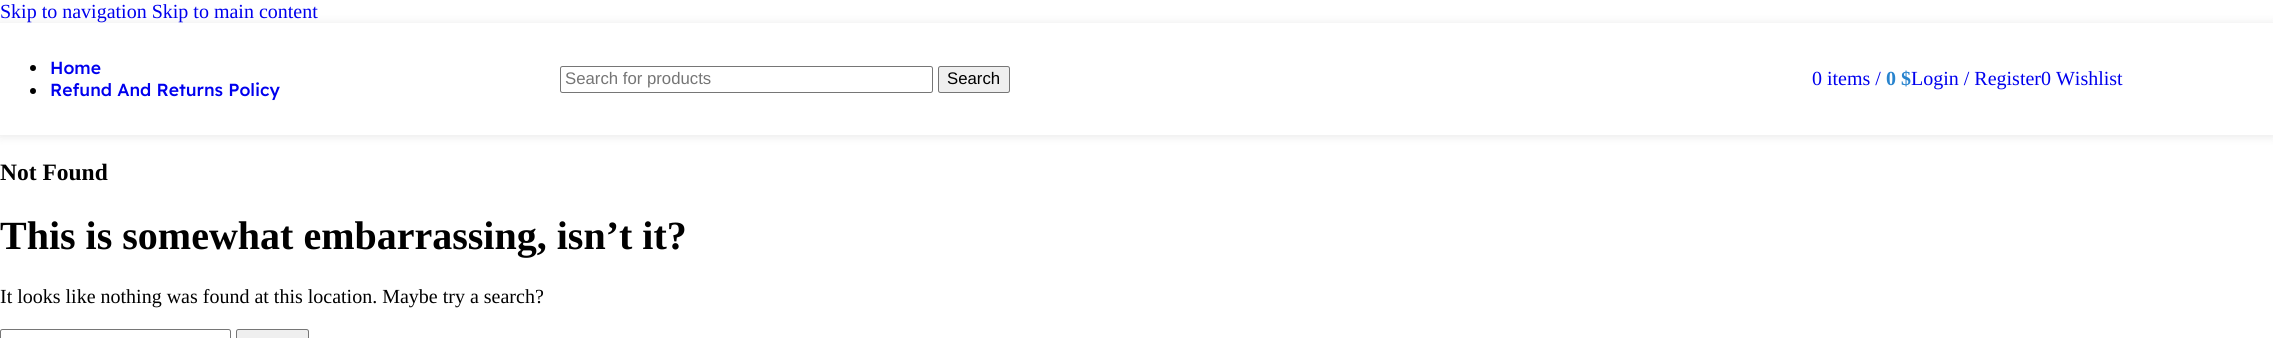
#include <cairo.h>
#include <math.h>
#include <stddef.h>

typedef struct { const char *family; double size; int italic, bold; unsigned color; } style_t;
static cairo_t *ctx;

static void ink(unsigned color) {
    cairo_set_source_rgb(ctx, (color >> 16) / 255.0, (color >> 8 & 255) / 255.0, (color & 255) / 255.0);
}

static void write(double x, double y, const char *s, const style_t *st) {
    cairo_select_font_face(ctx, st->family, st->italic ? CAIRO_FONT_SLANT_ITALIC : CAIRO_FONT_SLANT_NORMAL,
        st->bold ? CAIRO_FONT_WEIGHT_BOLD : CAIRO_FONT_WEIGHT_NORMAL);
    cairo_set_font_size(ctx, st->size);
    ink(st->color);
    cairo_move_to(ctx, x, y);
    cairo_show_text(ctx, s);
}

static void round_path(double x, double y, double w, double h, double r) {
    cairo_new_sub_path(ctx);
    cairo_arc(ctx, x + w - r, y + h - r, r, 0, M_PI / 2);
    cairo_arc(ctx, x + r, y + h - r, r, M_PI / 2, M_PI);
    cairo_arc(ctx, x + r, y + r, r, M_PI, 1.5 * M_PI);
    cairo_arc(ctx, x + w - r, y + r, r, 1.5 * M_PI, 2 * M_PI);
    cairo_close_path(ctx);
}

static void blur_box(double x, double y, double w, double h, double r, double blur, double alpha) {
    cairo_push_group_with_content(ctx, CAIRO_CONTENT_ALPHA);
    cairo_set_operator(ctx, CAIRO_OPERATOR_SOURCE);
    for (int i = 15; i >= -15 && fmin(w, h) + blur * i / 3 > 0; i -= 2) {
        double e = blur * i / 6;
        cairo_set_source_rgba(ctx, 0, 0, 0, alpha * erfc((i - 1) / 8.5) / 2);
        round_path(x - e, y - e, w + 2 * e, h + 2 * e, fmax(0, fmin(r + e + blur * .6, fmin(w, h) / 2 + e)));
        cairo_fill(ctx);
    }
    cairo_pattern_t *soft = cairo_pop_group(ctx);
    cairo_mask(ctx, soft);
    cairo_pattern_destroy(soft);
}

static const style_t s1 = {"Liberation Serif", 20, 0, 0, 0x0000ee};
static const style_t s2 = {"Readex Pro Medium", 17.5, 0, 0, 0x0000ee};
static const style_t s3 = {"Liberation Sans", 16.75, 0, 0, 0x757575};
static const style_t s4 = {"Liberation Sans", 16.75, 0, 0, 0x000000};
static const style_t s5 = {"Liberation Serif", 20, 0, 1, 0x2884ce};
static const style_t s6 = {"Liberation Serif", 23.5, 0, 1, 0x000000};
static const style_t s7 = {"Liberation Serif", 40, 0, 1, 0x000000};
static const style_t s8 = {"Liberation Serif", 20, 0, 0, 0x000000};

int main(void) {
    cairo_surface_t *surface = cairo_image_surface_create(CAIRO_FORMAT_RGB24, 2273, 338);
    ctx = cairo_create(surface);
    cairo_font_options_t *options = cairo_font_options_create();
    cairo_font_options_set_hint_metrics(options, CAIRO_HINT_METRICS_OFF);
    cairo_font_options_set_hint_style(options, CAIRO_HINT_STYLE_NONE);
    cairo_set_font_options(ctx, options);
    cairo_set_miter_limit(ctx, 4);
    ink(0xffffff);
    cairo_paint(ctx);
    write(0, 18, "Skip to navigation Skip to main content", &s1);
    cairo_save(ctx);
    cairo_set_fill_rule(ctx, CAIRO_FILL_RULE_EVEN_ODD);
    cairo_new_path(ctx);
    cairo_move_to(ctx, 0, 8);
    cairo_line_to(ctx, 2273, 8);
    cairo_line_to(ctx, 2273, 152);
    cairo_line_to(ctx, 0, 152);
    cairo_close_path(ctx);
    cairo_move_to(ctx, 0, 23);
    cairo_line_to(ctx, 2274, 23);
    cairo_line_to(ctx, 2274, 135);
    cairo_line_to(ctx, 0, 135);
    cairo_close_path(ctx);
    cairo_clip(ctx);
    ink(0x000000);
    blur_box(0, 24, 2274, 112, 0, 5, 0.1);
    cairo_restore(ctx);
    ink(0x000000);
    cairo_arc(ctx, 33, 68, 3, 0, 2 * M_PI);
    cairo_fill(ctx);
    write(50, 74, "Home", &s2);
    ink(0x000000);
    cairo_new_path(ctx);
    cairo_arc(ctx, 33, 91, 3, 0, 2 * M_PI);
    cairo_fill(ctx);
    write(50, 96, "Refund And Returns Policy", &s2);
    round_path(560.5, 66.5, 372, 26, 2);
    ink(0x767676);
    cairo_set_line_width(ctx, 1);
    cairo_stroke(ctx);
    write(565, 84, "Search for products", &s3);
    ink(0xefefef);
    round_path(938.5, 66.5, 71, 26, 2);
    cairo_fill_preserve(ctx);
    ink(0x767676);
    cairo_stroke(ctx);
    write(947, 84, "Search", &s4);
    write(1812, 85, "0 items /", &s1);
    write(1886, 85, "0 $", &s5);
    write(1911, 85, "Login / Register0 Wishlist", &s1);
    write(0, 180, "Not Found", &s6);
    write(0, 249, "This is somewhat embarrassing, isn’t it?", &s7);
    write(0, 303, "It looks like nothing was found at this location. Maybe try a search?", &s8);
    round_path(0.5, 329.5, 230, 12, 2);
    ink(0x767676);
    cairo_stroke(ctx);
    ink(0xefefef);
    round_path(236.5, 329.5, 72, 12, 2);
    cairo_fill_preserve(ctx);
    ink(0x767676);
    cairo_stroke(ctx);
    cairo_surface_write_to_png(surface, "screenshot.png");
    cairo_font_options_destroy(options);
    cairo_destroy(ctx);
    cairo_surface_destroy(surface);
    return 0;
}
